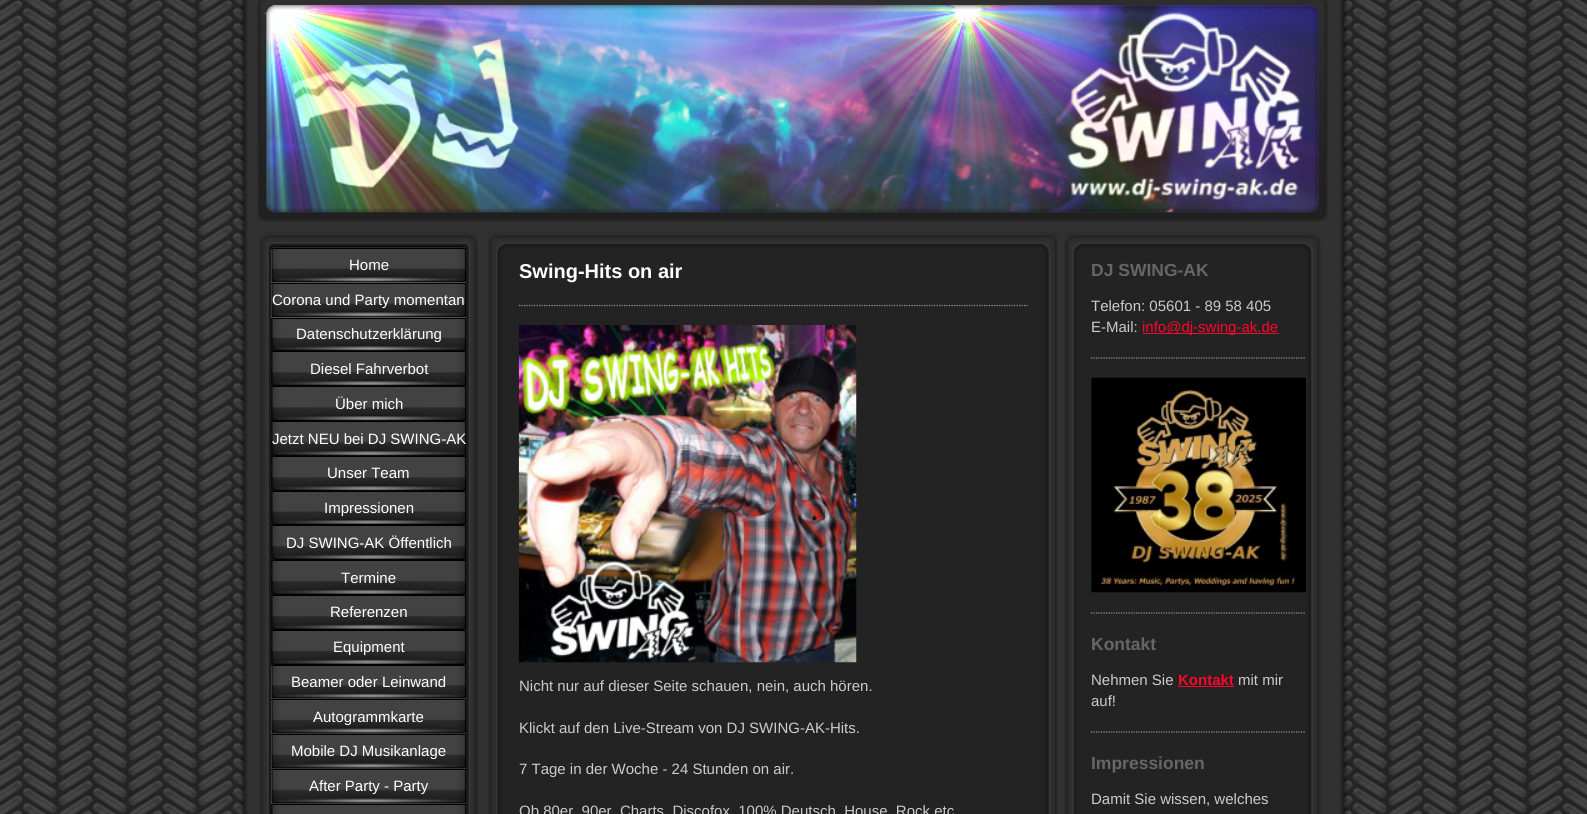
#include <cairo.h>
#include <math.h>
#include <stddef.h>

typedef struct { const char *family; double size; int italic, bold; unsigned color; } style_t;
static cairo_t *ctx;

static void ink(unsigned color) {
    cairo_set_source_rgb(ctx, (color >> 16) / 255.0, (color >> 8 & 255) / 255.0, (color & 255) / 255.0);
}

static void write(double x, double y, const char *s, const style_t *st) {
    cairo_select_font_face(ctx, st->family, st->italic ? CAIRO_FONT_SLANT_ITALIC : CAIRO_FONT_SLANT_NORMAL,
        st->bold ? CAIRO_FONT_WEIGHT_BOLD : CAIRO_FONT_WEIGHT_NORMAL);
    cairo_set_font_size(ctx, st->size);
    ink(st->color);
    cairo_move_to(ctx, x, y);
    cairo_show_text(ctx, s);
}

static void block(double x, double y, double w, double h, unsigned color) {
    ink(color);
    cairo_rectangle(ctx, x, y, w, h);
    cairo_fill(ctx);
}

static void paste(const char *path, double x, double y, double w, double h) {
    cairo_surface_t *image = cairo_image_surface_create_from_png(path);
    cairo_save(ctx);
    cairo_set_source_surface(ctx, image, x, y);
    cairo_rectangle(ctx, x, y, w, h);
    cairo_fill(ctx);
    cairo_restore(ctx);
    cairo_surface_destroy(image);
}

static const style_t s1 = {"Liberation Sans", 15, 0, 0, 0xffffff};
static const style_t s2 = {"Liberation Sans", 20, 0, 1, 0xffffff};
static const style_t s3 = {"Liberation Sans", 15, 0, 0, 0xcccccc};
static const style_t s4 = {"Liberation Sans", 17.5, 0, 1, 0x666666};
static const style_t s5 = {"Liberation Sans", 15, 0, 0, 0xff052b};
static const style_t s6 = {"Liberation Sans", 15, 0, 1, 0xff052b};

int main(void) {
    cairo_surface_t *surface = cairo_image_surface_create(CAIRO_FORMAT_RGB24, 1587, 814);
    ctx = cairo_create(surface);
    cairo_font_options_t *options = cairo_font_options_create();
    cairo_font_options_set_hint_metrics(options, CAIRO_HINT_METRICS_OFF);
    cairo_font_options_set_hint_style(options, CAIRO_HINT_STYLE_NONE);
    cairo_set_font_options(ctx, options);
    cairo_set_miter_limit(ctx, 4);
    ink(0xffffff);
    cairo_paint(ctx);
    paste("pic1.png", 0, 0, 1587, 814);
    paste("pic2.png", 240, 0, 1108, 814);
    paste("pic4.png", 263, 4, 1059, 209);
    paste("pic5.png", 257, 13, 14, 191);
    paste("pic7.png", 257, 203, 1071, 19);
    paste("pic6.png", 1314, 13, 14, 191);
    paste("pic3.png", 257, 0, 1071, 14);
    paste("pic8.png", 259, 232, 219, 582);
    paste("pic9.png", 259, 232, 219, 16);
    block(271, 249, 195, 34, 0xcccccc);
    paste("pic10.png", 271, 247, 196, 36);
    block(271, 248, 195, 1, 0x000000);
    write(349, 270, "Home", &s1);
    block(271, 284, 195, 34, 0xcccccc);
    paste("pic11.png", 271, 282, 196, 36);
    block(271, 283, 195, 1, 0x000000);
    write(272, 305, "Corona und Party momentan", &s1);
    paste("pic12.png", 271, 317, 196, 35);
    block(271, 318, 195, 1, 0x000000);
    write(296, 339, "Datenschutzerklärung", &s1);
    paste("pic13.png", 271, 351, 196, 36);
    block(271, 351, 195, 1, 0x000000);
    write(310, 374, "Diesel Fahrverbot", &s1);
    paste("pic13.png", 271, 386, 196, 36);
    block(271, 386, 195, 1, 0x000000);
    write(335, 409, "Über mich", &s1);
    paste("pic13.png", 271, 421, 196, 36);
    block(271, 421, 195, 1, 0x000000);
    write(272, 444, "Jetzt NEU bei DJ SWING-AK", &s1);
    paste("pic13.png", 271, 456, 196, 36);
    block(271, 456, 195, 1, 0x000000);
    write(327, 478, "Unser Team", &s1);
    paste("pic14.png", 271, 491, 196, 34);
    block(271, 491, 195, 1, 0x000000);
    write(324, 513, "Impressionen", &s1);
    paste("pic15.png", 271, 525, 196, 35);
    block(271, 525, 195, 1, 0x000000);
    write(286, 548, "DJ SWING-AK Öffentlich", &s1);
    paste("pic15.png", 271, 560, 196, 35);
    block(271, 560, 195, 1, 0x000000);
    write(341, 583, "Termine", &s1);
    paste("pic15.png", 271, 595, 196, 35);
    block(271, 595, 195, 1, 0x000000);
    write(330, 617, "Referenzen", &s1);
    paste("pic15.png", 271, 630, 196, 35);
    block(271, 630, 195, 1, 0x000000);
    write(333, 652, "Equipment", &s1);
    block(271, 666, 195, 33, 0xcccccc);
    paste("pic16.png", 271, 665, 196, 34);
    block(271, 665, 195, 1, 0x000000);
    write(291, 687, "Beamer oder Leinwand", &s1);
    block(271, 700, 195, 34, 0xcccccc);
    paste("pic17.png", 271, 698, 196, 36);
    block(271, 699, 195, 1, 0x000000);
    write(313, 722, "Autogrammkarte", &s1);
    block(271, 735, 195, 34, 0xcccccc);
    paste("pic17.png", 271, 733, 196, 36);
    block(271, 734, 195, 1, 0x000000);
    write(291, 756, "Mobile DJ Musikanlage", &s1);
    block(271, 770, 195, 34, 0xcccccc);
    paste("pic17.png", 271, 768, 196, 36);
    block(271, 769, 195, 1, 0x000000);
    write(309, 791, "After Party - Party", &s1);
    paste("pic18.png", 271, 803, 196, 11);
    block(271, 804, 195, 1, 0x000000);
    paste("pic19.png", 488, 232, 570, 582);
    paste("pic20.png", 488, 232, 570, 18);
    write(519, 278, "Swing-Hits on air", &s2);
    cairo_new_path(ctx);
    cairo_move_to(ctx, 519, 305.5);
    cairo_line_to(ctx, 1027.5, 305.5);
    ink(0x999999);
    cairo_set_line_width(ctx, 1.2);
    cairo_set_dash(ctx, (double[]){1.25, 1.25}, 2, 0);
    cairo_stroke(ctx);
    paste("pic21.png", 518, 325, 339, 338);
    write(519, 691, "Nicht nur auf dieser Seite schauen, nein, auch hören.", &s3);
    write(519, 733, "Klickt auf den Live-Stream von DJ SWING-AK-Hits.", &s3);
    write(519, 774, "7 Tage in der Woche - 24 Stunden on air.", &s3);
    write(519, 816, "Ob 80er, 90er, Charts, Discofox, 100% Deutsch, House, Rock etc", &s3);
    paste("pic22.png", 1064, 232, 257, 582);
    paste("pic23.png", 1064, 232, 257, 18);
    write(1091, 276, "DJ SWING-AK", &s4);
    write(1091, 311, "Telefon: 05601 - 89 58 405", &s3);
    write(1091, 332, "E-Mail:", &s3);
    block(1143, 333, 136, 1, 0xff052b);
    write(1142, 332, "info@dj-swing-ak.de", &s5);
    cairo_new_path(ctx);
    cairo_move_to(ctx, 1091, 358);
    cairo_line_to(ctx, 1306, 358);
    ink(0x999999);
    cairo_stroke(ctx);
    paste("pic24.png", 1091, 377, 215, 216);
    cairo_new_path(ctx);
    cairo_move_to(ctx, 1091, 613);
    cairo_line_to(ctx, 1306, 613);
    cairo_stroke(ctx);
    write(1091, 650, "Kontakt", &s4);
    write(1091, 685, "Nehmen Sie", &s3);
    write(1178, 685, "Kontakt", &s6);
    block(1178, 686, 56, 1, 0xff052b);
    write(1238, 685, "mit mir", &s3);
    write(1091, 706, "auf!", &s3);
    cairo_new_path(ctx);
    cairo_move_to(ctx, 1091, 732);
    cairo_line_to(ctx, 1306, 732);
    ink(0x999999);
    cairo_stroke(ctx);
    write(1091, 769, "Impressionen", &s4);
    write(1091, 804, "Damit Sie wissen, welches", &s3);
    cairo_surface_write_to_png(surface, "screenshot.png");
    cairo_font_options_destroy(options);
    cairo_destroy(ctx);
    cairo_surface_destroy(surface);
    return 0;
}
